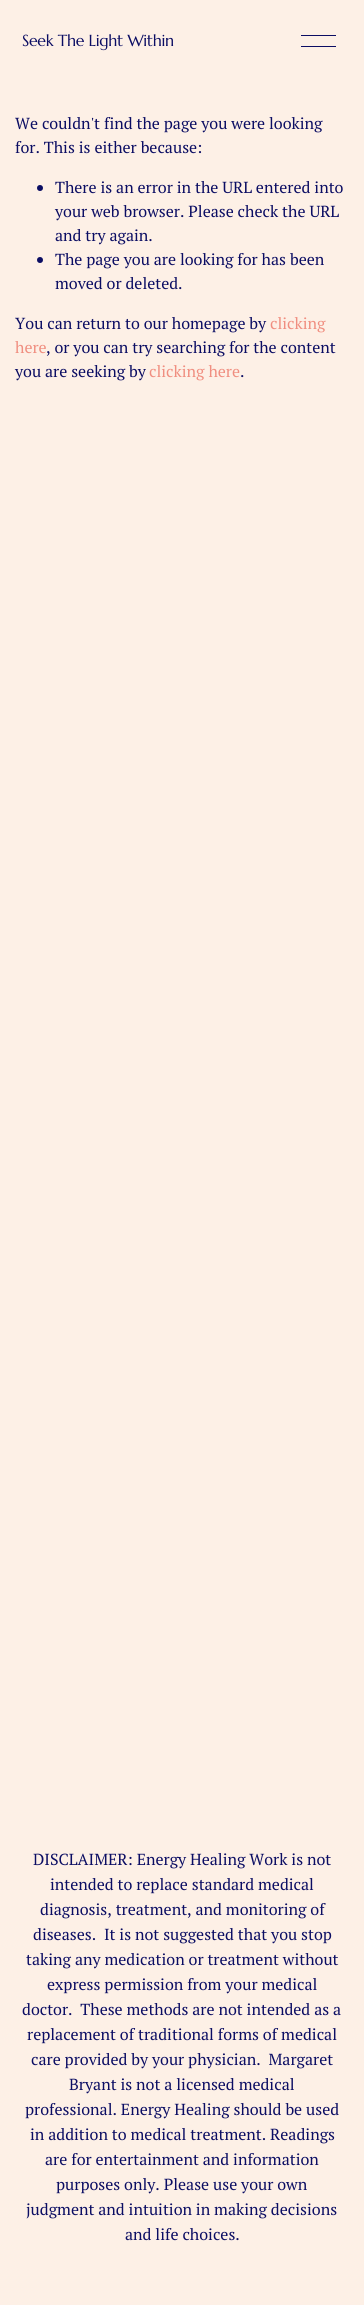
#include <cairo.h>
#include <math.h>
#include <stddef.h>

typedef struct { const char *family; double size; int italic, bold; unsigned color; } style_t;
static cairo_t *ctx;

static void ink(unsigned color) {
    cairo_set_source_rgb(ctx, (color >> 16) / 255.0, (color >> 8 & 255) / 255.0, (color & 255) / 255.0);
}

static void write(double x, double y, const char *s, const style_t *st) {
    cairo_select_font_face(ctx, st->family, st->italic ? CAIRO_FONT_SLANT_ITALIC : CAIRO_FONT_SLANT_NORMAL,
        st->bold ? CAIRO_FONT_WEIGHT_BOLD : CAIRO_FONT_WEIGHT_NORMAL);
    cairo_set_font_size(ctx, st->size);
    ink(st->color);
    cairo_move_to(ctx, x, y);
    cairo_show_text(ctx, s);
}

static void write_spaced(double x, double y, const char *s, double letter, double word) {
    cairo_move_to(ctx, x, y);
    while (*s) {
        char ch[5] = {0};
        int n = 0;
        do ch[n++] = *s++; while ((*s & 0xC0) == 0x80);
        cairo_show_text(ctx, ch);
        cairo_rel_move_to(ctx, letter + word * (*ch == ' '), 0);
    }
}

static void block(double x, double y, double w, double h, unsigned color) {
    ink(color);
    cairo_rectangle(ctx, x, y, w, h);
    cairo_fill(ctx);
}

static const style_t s1 = {"PT Serif", 16, 0, 0, 0x0b0d63};
static const style_t s2 = {"PT Serif", 16, 0, 0, 0xf08e80};

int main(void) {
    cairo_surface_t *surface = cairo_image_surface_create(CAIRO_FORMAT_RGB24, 364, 2305);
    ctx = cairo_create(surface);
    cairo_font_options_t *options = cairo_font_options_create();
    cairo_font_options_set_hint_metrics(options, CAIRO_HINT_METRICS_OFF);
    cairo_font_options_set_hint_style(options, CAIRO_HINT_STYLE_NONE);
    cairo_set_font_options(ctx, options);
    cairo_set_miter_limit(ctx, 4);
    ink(0xfdf0e6);
    cairo_paint(ctx);
    cairo_select_font_face(ctx, "Marcellus", CAIRO_FONT_SLANT_NORMAL, CAIRO_FONT_WEIGHT_NORMAL);
    cairo_set_font_size(ctx, 16);
    ink(0x0b0d63);
    write_spaced(22, 46, "Seek The Light Within", -0.3, 0);
    block(301, 35, 35, 1, 0x0b0d63);
    block(301, 46, 35, 1, 0x0b0d63);
    write(15, 129, "We couldn't find the page you were looking", &s1);
    write(15, 153, "for. This is either because:", &s1);
    cairo_new_path(ctx);
    cairo_arc(ctx, 40, 188, 3, 0, 2 * M_PI);
    cairo_fill(ctx);
    write(55, 193, "There is an error in the URL entered into", &s1);
    write(55, 217, "your web browser. Please check the URL", &s1);
    write(55, 241, "and try again.", &s1);
    cairo_new_path(ctx);
    cairo_arc(ctx, 40, 260, 3, 0, 2 * M_PI);
    cairo_fill(ctx);
    write(55, 265, "The page you are looking for has been", &s1);
    write(55, 289, "moved or deleted.", &s1);
    write(15, 329, "You can return to our homepage by", &s1);
    write(270, 329, "clicking", &s2);
    write(15, 353, "here", &s2);
    write(46, 353, ", or you can try searching for the content", &s1);
    write(15, 377, "you are seeking by", &s1);
    write(149, 377, "clicking here", &s2);
    write(240, 377, ".", &s1);
    write(33, 1865, "DISCLAIMER: Energy Healing Work is not", &s1);
    write(50, 1890, "intended to replace standard medical", &s1);
    write(40, 1915, "diagnosis, treatment, and monitoring of", &s1);
    write(33, 1940, "diseases.  It is not suggested that you stop", &s1);
    write(26, 1965, "taking any medication or treatment without", &s1);
    write(47, 1990, "express permission from your medical", &s1);
    write(22, 2015, "doctor.  These methods are not intended as a", &s1);
    write(27, 2040, "replacement of traditional forms of medical", &s1);
    write(31, 2065, "care provided by your physician.  Margaret", &s1);
    write(69, 2090, "Bryant is not a licensed medical", &s1);
    write(25, 2115, "professional. Energy Healing should be used", &s1);
    write(30, 2140, "in addition to medical treatment. Readings", &s1);
    write(45, 2165, "are for entertainment and information", &s1);
    write(56, 2190, "purposes only. Please use your own", &s1);
    write(26, 2215, "judgment and intuition in making decisions", &s1);
    write(125, 2240, "and life choices.", &s1);
    cairo_surface_write_to_png(surface, "screenshot.png");
    cairo_font_options_destroy(options);
    cairo_destroy(ctx);
    cairo_surface_destroy(surface);
    return 0;
}
